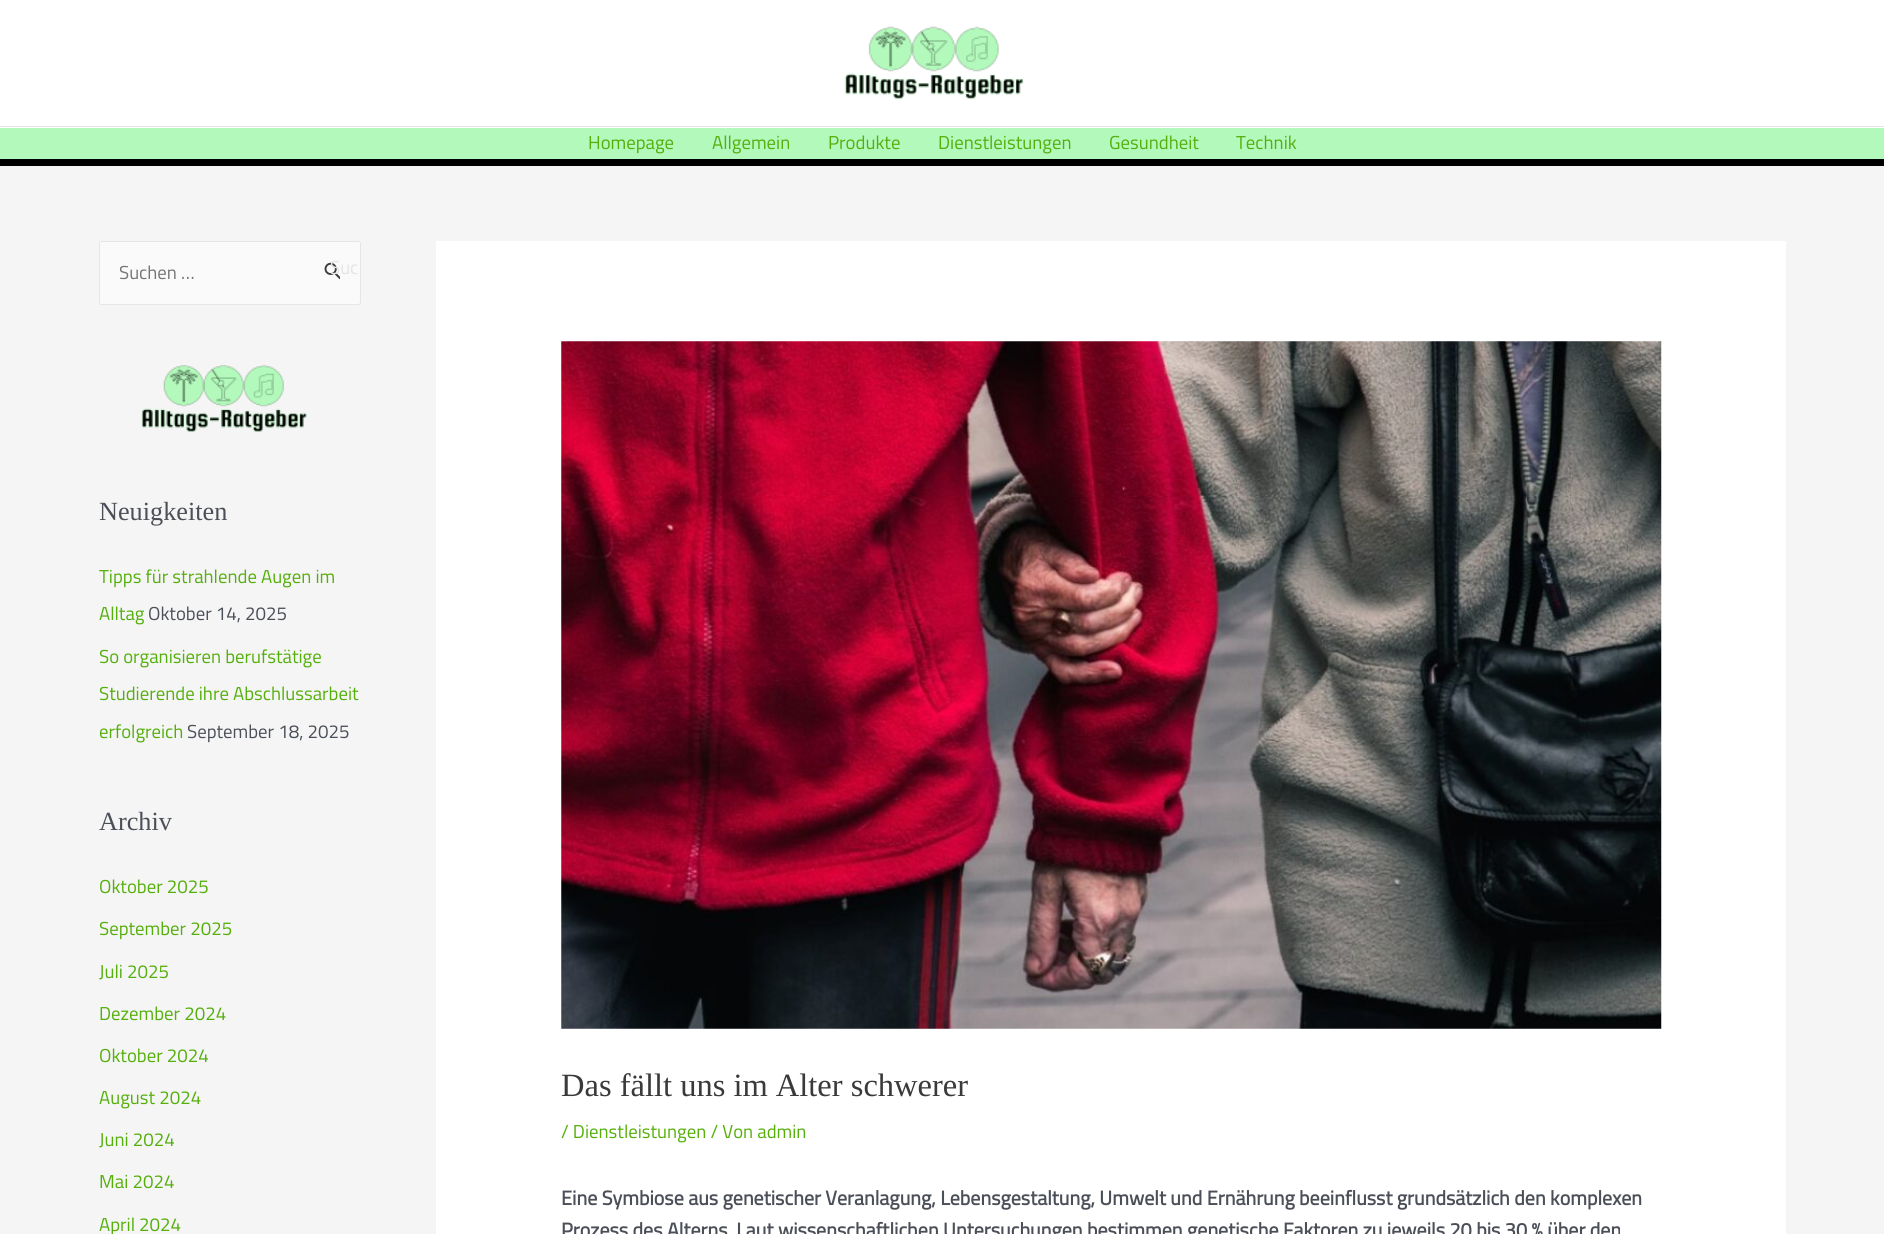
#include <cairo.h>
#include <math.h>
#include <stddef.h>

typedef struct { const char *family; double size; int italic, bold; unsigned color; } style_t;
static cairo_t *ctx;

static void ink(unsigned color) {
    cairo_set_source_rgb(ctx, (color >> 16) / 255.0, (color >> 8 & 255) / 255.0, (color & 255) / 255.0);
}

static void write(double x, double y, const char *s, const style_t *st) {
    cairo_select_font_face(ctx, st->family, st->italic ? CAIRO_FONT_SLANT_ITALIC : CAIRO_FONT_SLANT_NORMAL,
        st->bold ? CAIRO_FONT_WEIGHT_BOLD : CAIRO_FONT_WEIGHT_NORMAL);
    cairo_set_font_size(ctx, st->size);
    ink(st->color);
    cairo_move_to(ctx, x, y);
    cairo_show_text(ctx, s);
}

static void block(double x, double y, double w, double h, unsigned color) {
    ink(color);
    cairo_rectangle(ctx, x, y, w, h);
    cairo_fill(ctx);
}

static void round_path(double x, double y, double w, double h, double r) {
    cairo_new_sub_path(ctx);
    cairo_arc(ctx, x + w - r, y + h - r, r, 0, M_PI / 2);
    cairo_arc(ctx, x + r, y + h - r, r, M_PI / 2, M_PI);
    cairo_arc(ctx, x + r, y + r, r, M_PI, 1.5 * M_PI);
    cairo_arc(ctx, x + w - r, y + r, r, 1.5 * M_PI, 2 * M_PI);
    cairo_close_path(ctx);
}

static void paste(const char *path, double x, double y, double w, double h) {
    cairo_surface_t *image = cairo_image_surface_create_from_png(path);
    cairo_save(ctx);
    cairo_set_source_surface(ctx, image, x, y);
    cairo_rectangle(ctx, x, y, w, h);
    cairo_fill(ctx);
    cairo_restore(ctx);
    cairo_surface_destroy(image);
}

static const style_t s1 = {"Titillium Web", 18.75, 0, 0, 0x55af0b};
static const style_t s2 = {"Titillium Web", 18.75, 0, 0, 0x757575};
static const style_t s3 = {"Titillium Web", 18.75, 0, 0, 0xe4e4e4};
static const style_t s4 = {"Liberation Serif", 26.25, 0, 0, 0x4b4f58};
static const style_t s5 = {"Titillium Web", 18.75, 0, 0, 0x4b4f58};
static const style_t s6 = {"Liberation Serif", 32.5, 0, 0, 0x3a3a3a};
static const style_t s7 = {"Titillium Web", 20, 0, 1, 0x4b4f58};

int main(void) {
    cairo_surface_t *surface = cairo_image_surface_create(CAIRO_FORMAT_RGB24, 1884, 1234);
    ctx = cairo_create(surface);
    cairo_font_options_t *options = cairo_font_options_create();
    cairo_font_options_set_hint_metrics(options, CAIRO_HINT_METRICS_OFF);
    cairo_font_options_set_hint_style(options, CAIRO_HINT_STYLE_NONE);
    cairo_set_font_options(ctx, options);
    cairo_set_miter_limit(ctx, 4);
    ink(0xf5f5f5);
    cairo_paint(ctx);
    block(0, 0, 1884, 128, 0xffffff);
    block(0, 126, 1884, 1, 0xe5e5e5);
    paste("pic1.png", 844, 26, 180, 74);
    block(0, 128, 1884, 31, 0xb2f9bb);
    block(0, 159, 1884, 7, 0x000000);
    write(588, 149, "Homepage", &s1);
    write(712, 149, "Allgemein", &s1);
    write(828, 149, "Produkte", &s1);
    write(938, 149, "Dienstleistungen", &s1);
    write(1109, 149, "Gesundheit", &s1);
    write(1236, 149, "Technik", &s1);
    ink(0xfafafa);
    round_path(99.5, 241.5, 261, 63, 2);
    cairo_fill_preserve(ctx);
    ink(0xe5e5e5);
    cairo_set_line_width(ctx, 1);
    cairo_stroke(ctx);
    write(119, 279, "Suchen …", &s2);
    paste("pic2.png", 324, 262, 16, 18);
    write(330, 274, "Suc", &s3);
    paste("pic3.png", 141, 365, 166, 68);
    write(99, 520, "Neuigkeiten", &s4);
    write(99, 583, "Tipps für strahlende Augen im", &s1);
    write(99, 620, "Alltag", &s1);
    write(148, 620, "Oktober 14, 2025", &s5);
    write(99, 663, "So organisieren berufstätige", &s1);
    write(99, 700, "Studierende ihre Abschlussarbeit", &s1);
    write(99, 738, "erfolgreich", &s1);
    write(187, 738, "September 18, 2025", &s5);
    write(99, 830, "Archiv", &s4);
    write(99, 893, "Oktober 2025", &s1);
    write(99, 935, "September 2025", &s1);
    write(99, 978, "Juli 2025", &s1);
    write(99, 1020, "Dezember 2024", &s1);
    write(99, 1062, "Oktober 2024", &s1);
    write(99, 1104, "August 2024", &s1);
    write(99, 1146, "Juni 2024", &s1);
    write(99, 1188, "Mai 2024", &s1);
    write(99, 1231, "April 2024", &s1);
    block(436, 241, 1350, 993, 0xffffff);
    paste("pic4.png", 561, 341, 1101, 688);
    write(561, 1096, "Das fällt uns im Alter schwerer", &s6);
    write(561, 1138, "/ Dienstleistungen / Von admin", &s1);
    write(561, 1205, "Eine Symbiose aus genetischer Veranlagung, Lebensgestaltung, Umwelt und Ernährung beeinflusst grundsätzlich den komplexen", &s7);
    write(561, 1237, "Prozess des Alterns. Laut wissenschaftlichen Untersuchungen bestimmen genetische Faktoren zu jeweils 20 bis 30 % über den", &s7);
    cairo_surface_write_to_png(surface, "screenshot.png");
    cairo_font_options_destroy(options);
    cairo_destroy(ctx);
    cairo_surface_destroy(surface);
    return 0;
}
